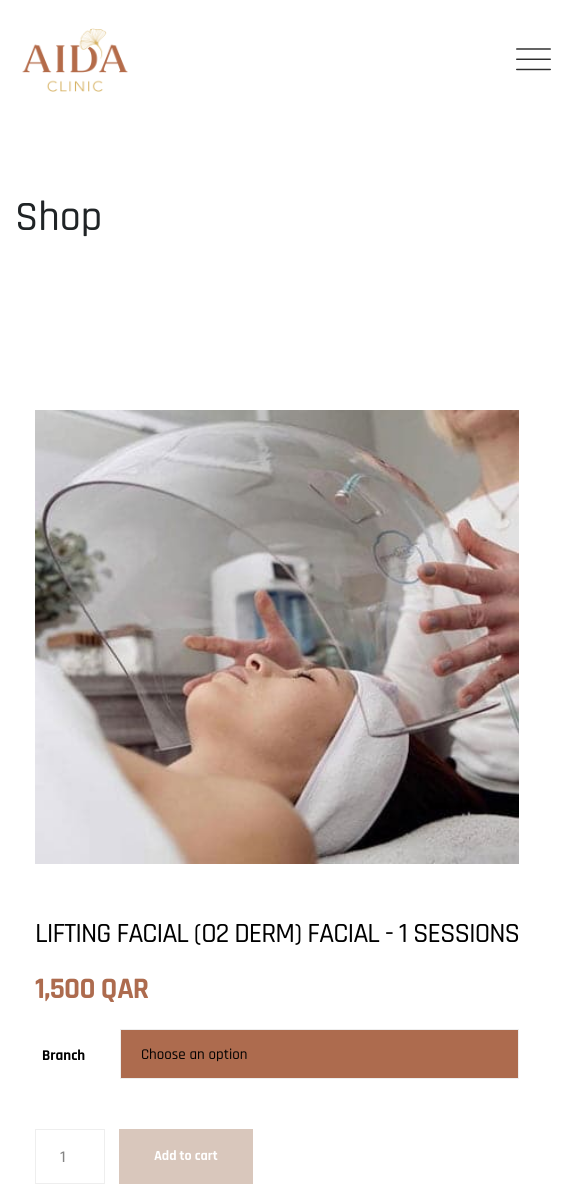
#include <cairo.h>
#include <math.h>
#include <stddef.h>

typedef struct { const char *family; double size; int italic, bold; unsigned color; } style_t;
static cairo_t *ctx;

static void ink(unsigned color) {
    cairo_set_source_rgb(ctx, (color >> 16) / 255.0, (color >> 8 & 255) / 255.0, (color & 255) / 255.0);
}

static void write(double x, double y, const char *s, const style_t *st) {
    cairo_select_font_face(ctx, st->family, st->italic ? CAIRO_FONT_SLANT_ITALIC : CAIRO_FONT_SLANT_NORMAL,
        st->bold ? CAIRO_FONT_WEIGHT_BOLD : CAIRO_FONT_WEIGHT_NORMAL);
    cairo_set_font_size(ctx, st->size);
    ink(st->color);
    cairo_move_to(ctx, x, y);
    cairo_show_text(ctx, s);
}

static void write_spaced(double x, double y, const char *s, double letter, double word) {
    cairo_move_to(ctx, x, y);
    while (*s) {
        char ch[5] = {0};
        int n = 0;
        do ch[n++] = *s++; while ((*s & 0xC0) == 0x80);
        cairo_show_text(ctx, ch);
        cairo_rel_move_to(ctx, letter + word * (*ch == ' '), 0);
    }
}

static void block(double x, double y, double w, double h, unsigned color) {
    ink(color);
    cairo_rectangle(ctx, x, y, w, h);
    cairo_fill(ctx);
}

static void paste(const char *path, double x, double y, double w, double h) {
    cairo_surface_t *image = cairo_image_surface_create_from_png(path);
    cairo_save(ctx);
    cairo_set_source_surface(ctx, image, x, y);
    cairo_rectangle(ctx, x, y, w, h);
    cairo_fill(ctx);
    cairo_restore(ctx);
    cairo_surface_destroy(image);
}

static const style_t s1 = {"Rajdhani Medium", 42, 0, 0, 0x202426};
static const style_t s2 = {"Rajdhani", 15, 0, 1, 0x000000};
static const style_t s3 = {"Rajdhani Medium", 15, 0, 0, 0x000000};
static const style_t s4 = {"Chakra Petch Medium", 15, 0, 0, 0x848484};
static const style_t s5 = {"Rajdhani", 14, 0, 1, 0xffffff};

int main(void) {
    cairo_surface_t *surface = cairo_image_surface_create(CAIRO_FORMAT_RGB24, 564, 1184);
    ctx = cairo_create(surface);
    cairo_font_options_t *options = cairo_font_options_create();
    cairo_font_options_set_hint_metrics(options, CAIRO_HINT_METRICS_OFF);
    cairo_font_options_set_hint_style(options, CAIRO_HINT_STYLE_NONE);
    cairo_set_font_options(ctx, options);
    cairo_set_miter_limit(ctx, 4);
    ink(0xffffff);
    cairo_paint(ctx);
    paste("pic1.png", 22, 28, 106, 64);
    paste("pic2.png", 516, 48, 35, 23);
    write(15, 230, "Shop", &s1);
    paste("pic3.png", 35, 410, 484, 454);
    cairo_set_font_size(ctx, 28);
    ink(0x000000);
    write_spaced(35, 942, "LIFTING FACIAL (O2 DERM) FACIAL - 1 SESSIONS", -1, 0);
    cairo_select_font_face(ctx, "Rajdhani", CAIRO_FONT_SLANT_NORMAL, CAIRO_FONT_WEIGHT_BOLD);
    cairo_set_font_size(ctx, 30);
    ink(0xad6b4e);
    write_spaced(35, 998, "1,500 QAR", -0.75, 0);
    write(42, 1060, "Branch", &s2);
    cairo_rectangle(ctx, 120.5, 1029.5, 398, 49);
    ink(0xeeeeee);
    cairo_set_line_width(ctx, 1);
    cairo_stroke(ctx);
    block(121, 1030, 397, 48, 0xad6b4e);
    write(141, 1059, "Choose an option", &s3);
    cairo_rectangle(ctx, 35.5, 1129.5, 69, 54);
    ink(0xeeeeee);
    cairo_stroke(ctx);
    write(60, 1162, "1", &s4);
    block(119, 1129, 134, 55, 0xd9c7bc);
    write(154, 1160, "Add to cart", &s5);
    cairo_surface_write_to_png(surface, "screenshot.png");
    cairo_font_options_destroy(options);
    cairo_destroy(ctx);
    cairo_surface_destroy(surface);
    return 0;
}
